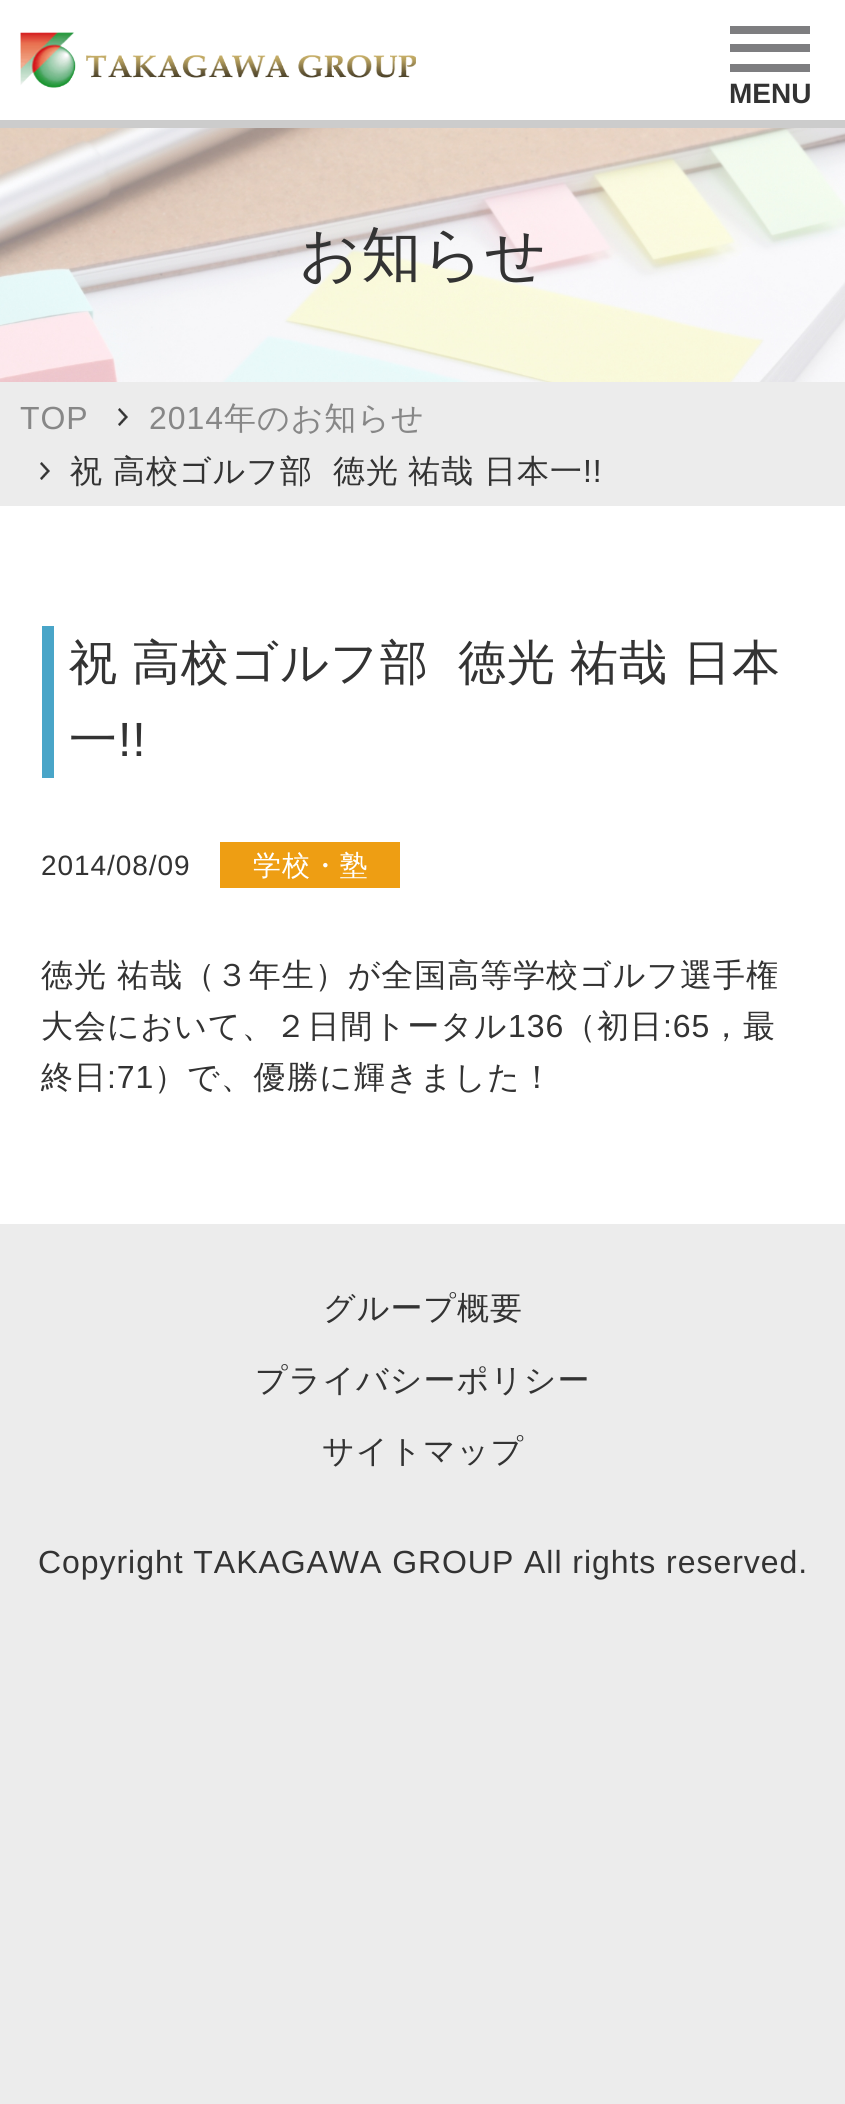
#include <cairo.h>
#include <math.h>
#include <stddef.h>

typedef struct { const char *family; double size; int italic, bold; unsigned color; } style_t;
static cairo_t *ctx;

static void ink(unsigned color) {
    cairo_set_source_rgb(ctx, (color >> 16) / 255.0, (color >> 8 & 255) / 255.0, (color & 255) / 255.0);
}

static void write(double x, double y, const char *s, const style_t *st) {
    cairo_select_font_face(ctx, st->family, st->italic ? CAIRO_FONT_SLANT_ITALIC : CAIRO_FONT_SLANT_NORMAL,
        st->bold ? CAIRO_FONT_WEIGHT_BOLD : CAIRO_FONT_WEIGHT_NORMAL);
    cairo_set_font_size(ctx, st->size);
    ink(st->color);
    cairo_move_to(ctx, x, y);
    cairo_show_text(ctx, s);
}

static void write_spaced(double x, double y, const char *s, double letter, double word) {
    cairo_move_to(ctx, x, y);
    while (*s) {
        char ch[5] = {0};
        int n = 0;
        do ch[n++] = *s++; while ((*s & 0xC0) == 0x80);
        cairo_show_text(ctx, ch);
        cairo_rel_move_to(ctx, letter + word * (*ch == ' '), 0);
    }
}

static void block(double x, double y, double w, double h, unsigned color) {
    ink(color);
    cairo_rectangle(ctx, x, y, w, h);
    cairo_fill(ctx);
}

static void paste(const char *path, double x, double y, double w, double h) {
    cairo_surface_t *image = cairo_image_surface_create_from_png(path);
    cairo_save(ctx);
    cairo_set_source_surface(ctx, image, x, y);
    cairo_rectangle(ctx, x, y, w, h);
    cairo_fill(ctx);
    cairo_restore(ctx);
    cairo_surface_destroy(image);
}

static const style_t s1 = {"Liberation Sans", 28, 0, 1, 0x333333};

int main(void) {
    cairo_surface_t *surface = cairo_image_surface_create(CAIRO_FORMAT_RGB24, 845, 2104);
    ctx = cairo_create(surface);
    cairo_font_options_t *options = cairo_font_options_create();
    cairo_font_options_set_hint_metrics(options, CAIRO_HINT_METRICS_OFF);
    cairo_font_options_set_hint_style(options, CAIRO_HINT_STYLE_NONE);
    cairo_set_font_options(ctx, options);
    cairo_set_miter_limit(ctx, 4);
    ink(0xffffff);
    cairo_paint(ctx);
    block(0, 120, 845, 8, 0xcccccc);
    paste("pic1.png", 20, 32, 396, 56);
    block(730, 26, 80, 8, 0x7e7e80);
    block(730, 44, 80, 8, 0x7e7e80);
    block(730, 64, 80, 8, 0x7e7e80);
    write(729, 103, "MENU", &s1);
    paste("pic2.png", 0, 128, 845, 254);
    cairo_select_font_face(ctx, "WenQuanYi Zen Hei Medium", CAIRO_FONT_SLANT_NORMAL, CAIRO_FONT_WEIGHT_NORMAL);
    cairo_set_font_size(ctx, 60);
    write_spaced(299, 275, "お知らせ", 0.95, 0);
    block(0, 382, 845, 124, 0xececec);
    cairo_select_font_face(ctx, "Liberation Sans", CAIRO_FONT_SLANT_NORMAL, CAIRO_FONT_WEIGHT_NORMAL);
    cairo_set_font_size(ctx, 32);
    ink(0x878787);
    write_spaced(20, 429, "TOP", 0.95, 0);
    paste("pic3.png", 118, 408, 10, 18);
    write_spaced(149, 429, "2014", 0.95, 0);
    cairo_select_font_face(ctx, "WenQuanYi Zen Hei Medium", CAIRO_FONT_SLANT_NORMAL, CAIRO_FONT_WEIGHT_NORMAL);
    write_spaced(224, 429, "年のお知らせ", 0.95, 0);
    paste("pic3.png", 40, 462, 10, 18);
    ink(0x333333);
    write_spaced(70, 482, "祝", 0.95, 0);
    write_spaced(113, 482, "高校ゴルフ部", 0.95, 0);
    write_spaced(333, 482, "徳光", 0.95, 0);
    write_spaced(408, 482, "祐哉", 0.95, 0);
    write_spaced(484, 482, "日本一", 0.95, 0);
    cairo_select_font_face(ctx, "Liberation Sans", CAIRO_FONT_SLANT_NORMAL, CAIRO_FONT_WEIGHT_NORMAL);
    write_spaced(583, 482, "!!", 0.95, 0);
    block(42, 626, 12, 152, 0x49a5c8);
    cairo_select_font_face(ctx, "WenQuanYi Zen Hei Medium", CAIRO_FONT_SLANT_NORMAL, CAIRO_FONT_WEIGHT_NORMAL);
    cairo_set_font_size(ctx, 48);
    ink(0x333333);
    write_spaced(69, 679, "祝", 0.95, 0);
    write_spaced(132, 679, "高校ゴルフ部", 0.95, 0);
    write_spaced(458, 679, "徳光", 0.95, 0);
    write_spaced(570, 679, "祐哉", 0.95, 0);
    write_spaced(683, 679, "日本", 0.95, 0);
    write_spaced(69, 756, "一", 0.95, 0);
    cairo_select_font_face(ctx, "Liberation Sans", CAIRO_FONT_SLANT_NORMAL, CAIRO_FONT_WEIGHT_NORMAL);
    write_spaced(118, 756, "!!", 0.95, 0);
    cairo_set_font_size(ctx, 28);
    write_spaced(41, 875, "2014/08/09", 0.95, 0);
    block(220, 842, 180, 46, 0xee9e13);
    cairo_select_font_face(ctx, "WenQuanYi Zen Hei Medium", CAIRO_FONT_SLANT_NORMAL, CAIRO_FONT_WEIGHT_NORMAL);
    ink(0xffffff);
    write_spaced(253, 875, "学校・塾", 0.95, 0);
    cairo_set_font_size(ctx, 32);
    ink(0x333333);
    write_spaced(41, 986, "徳光", 0.95, 0);
    write_spaced(117, 986, "祐哉（３年生）が全国高等学校ゴルフ選手権", 0.95, 0);
    write_spaced(41, 1037, "大会において、２日間トータル", 0.95, 0);
    cairo_select_font_face(ctx, "Liberation Sans", CAIRO_FONT_SLANT_NORMAL, CAIRO_FONT_WEIGHT_NORMAL);
    write_spaced(508, 1037, "136", 0.95, 0);
    cairo_select_font_face(ctx, "WenQuanYi Zen Hei Medium", CAIRO_FONT_SLANT_NORMAL, CAIRO_FONT_WEIGHT_NORMAL);
    write_spaced(564, 1037, "（初日", 0.95, 0);
    cairo_select_font_face(ctx, "Liberation Sans", CAIRO_FONT_SLANT_NORMAL, CAIRO_FONT_WEIGHT_NORMAL);
    write_spaced(663, 1037, ":65", 0.95, 0);
    cairo_select_font_face(ctx, "WenQuanYi Zen Hei Medium", CAIRO_FONT_SLANT_NORMAL, CAIRO_FONT_WEIGHT_NORMAL);
    write_spaced(710, 1037, "，最", 0.95, 0);
    write_spaced(41, 1088, "終日", 0.95, 0);
    cairo_select_font_face(ctx, "Liberation Sans", CAIRO_FONT_SLANT_NORMAL, CAIRO_FONT_WEIGHT_NORMAL);
    write_spaced(107, 1088, ":71", 0.95, 0);
    cairo_select_font_face(ctx, "WenQuanYi Zen Hei Medium", CAIRO_FONT_SLANT_NORMAL, CAIRO_FONT_WEIGHT_NORMAL);
    write_spaced(154, 1088, "）で、優勝に輝きました！", 0.95, 0);
    block(0, 1224, 845, 880, 0xececec);
    ink(0x333333);
    write_spaced(323, 1319, "グループ概要", 0.95, 0);
    write_spaced(255, 1391, "プライバシーポリシー", 0.95, 0);
    write_spaced(322, 1462, "サイトマップ", 0.95, 0);
    cairo_select_font_face(ctx, "Liberation Sans", CAIRO_FONT_SLANT_NORMAL, CAIRO_FONT_WEIGHT_NORMAL);
    write_spaced(38, 1573, "Copyright TAKAGAWA GROUP All rights reserved.", 0.95, 0);
    cairo_surface_write_to_png(surface, "screenshot.png");
    cairo_font_options_destroy(options);
    cairo_destroy(ctx);
    cairo_surface_destroy(surface);
    return 0;
}
